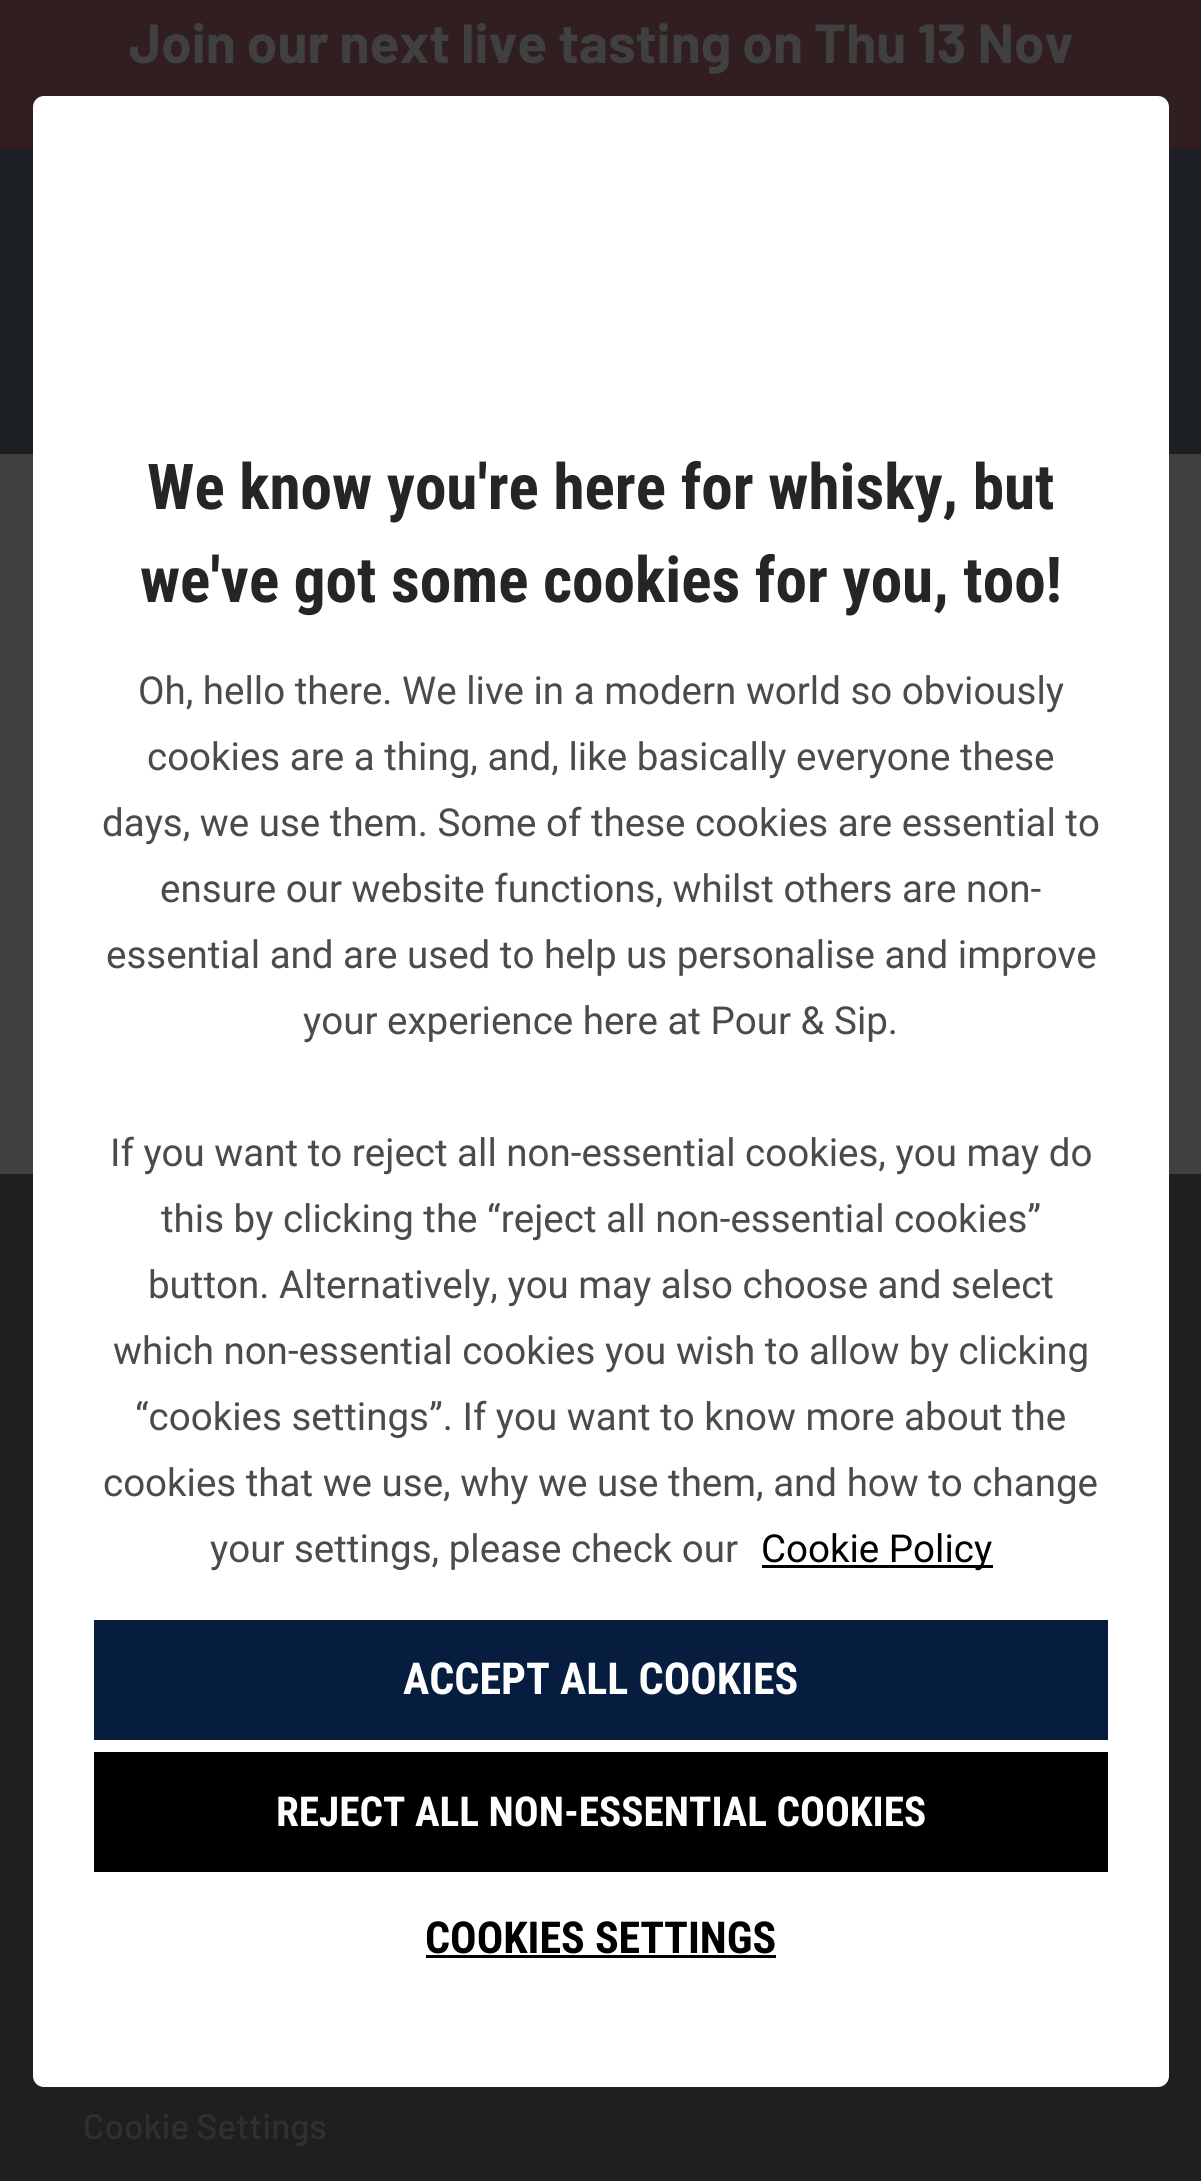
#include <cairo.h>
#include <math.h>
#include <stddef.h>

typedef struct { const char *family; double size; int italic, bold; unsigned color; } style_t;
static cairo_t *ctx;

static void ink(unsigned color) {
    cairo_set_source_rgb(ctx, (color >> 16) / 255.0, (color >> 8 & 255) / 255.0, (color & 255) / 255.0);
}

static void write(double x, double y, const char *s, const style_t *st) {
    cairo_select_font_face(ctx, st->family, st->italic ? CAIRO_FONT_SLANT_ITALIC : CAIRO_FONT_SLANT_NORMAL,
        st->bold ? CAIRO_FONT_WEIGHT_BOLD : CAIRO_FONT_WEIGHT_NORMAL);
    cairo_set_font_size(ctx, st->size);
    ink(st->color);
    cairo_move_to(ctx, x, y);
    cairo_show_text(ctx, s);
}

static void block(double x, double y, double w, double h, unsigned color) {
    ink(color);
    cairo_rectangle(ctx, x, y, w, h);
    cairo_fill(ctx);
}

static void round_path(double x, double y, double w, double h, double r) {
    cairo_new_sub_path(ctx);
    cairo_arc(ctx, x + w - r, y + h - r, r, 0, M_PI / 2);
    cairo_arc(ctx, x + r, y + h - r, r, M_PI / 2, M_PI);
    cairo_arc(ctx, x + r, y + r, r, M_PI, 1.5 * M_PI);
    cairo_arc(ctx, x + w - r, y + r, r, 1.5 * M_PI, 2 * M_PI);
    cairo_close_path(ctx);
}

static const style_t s1 = {"Barlow", 55, 0, 1, 0x414040};
static const style_t s2 = {"Barlow Medium", 35.25, 0, 0, 0x312f2f};
static const style_t s3 = {"Roboto Condensed", 63.25, 0, 1, 0x262424};
static const style_t s4 = {"Roboto", 38.5, 0, 0, 0x4d4b49};
static const style_t s5 = {"Roboto", 38.5, 0, 0, 0x000000};
static const style_t s6 = {"Roboto Condensed", 44, 0, 1, 0xffffff};
static const style_t s7 = {"Roboto Condensed", 41.25, 0, 1, 0xffffff};
static const style_t s8 = {"Roboto Condensed", 44, 0, 1, 0x000000};

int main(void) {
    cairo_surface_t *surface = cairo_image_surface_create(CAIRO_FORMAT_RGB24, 1201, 2181);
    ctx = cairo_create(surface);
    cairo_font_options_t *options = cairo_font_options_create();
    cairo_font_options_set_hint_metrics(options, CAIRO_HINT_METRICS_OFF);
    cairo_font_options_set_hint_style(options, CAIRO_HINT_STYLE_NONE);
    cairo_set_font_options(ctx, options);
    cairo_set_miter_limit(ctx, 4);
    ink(0x414040);
    cairo_paint(ctx);
    block(0, 0, 1201, 149, 0x301e20);
    write(129, 63, "Join our next live tasting on Thu 13 Nov", &s1);
    block(0, 149, 1201, 305, 0x1b1e23);
    block(0, 1174, 1201, 1007, 0x201f1f);
    write(83, 2139, "Cookie Settings", &s2);
    ink(0xffffff);
    round_path(33, 96, 1136, 1991, 11);
    cairo_fill(ctx);
    write(147, 509, "We know you're here for whisky, but", &s3);
    write(140, 602, "we've got some cookies for you, too!", &s3);
    write(138, 704, "Oh, hello there. We live in a modern world so obviously", &s4);
    write(147, 770, "cookies are a thing, and, like basically everyone these", &s4);
    write(102, 836, "days, we use them. Some of these cookies are essential to", &s4);
    write(160, 902, "ensure our website functions, whilst others are non-", &s4);
    write(106, 968, "essential and are used to help us personalise and improve", &s4);
    write(303, 1034, "your experience here at Pour & Sip.", &s4);
    write(110, 1166, "If you want to reject all non-essential cookies, you may do", &s4);
    write(161, 1232, "this by clicking the “reject all non-essential cookies”", &s4);
    write(148, 1298, "button. Alternatively, you may also choose and select", &s4);
    write(113, 1364, "which non-essential cookies you wish to allow by clicking", &s4);
    write(135, 1430, "“cookies settings”. If you want to know more about the", &s4);
    write(103, 1496, "cookies that we use, why we use them, and how to change", &s4);
    write(210, 1562, "your settings, please check our", &s4);
    block(762, 1565, 231, 3, 0x000000);
    write(761, 1562, "Cookie Policy", &s5);
    block(94, 1620, 1014, 120, 0x061d3f);
    write(403, 1694, "ACCEPT ALL COOKIES", &s6);
    block(94, 1752, 1014, 120, 0x000000);
    write(276, 1826, "REJECT ALL NON-ESSENTIAL COOKIES", &s7);
    write(425, 1953, "COOKIES SETTINGS", &s8);
    block(426, 1955, 350, 3, 0x000000);
    cairo_surface_write_to_png(surface, "screenshot.png");
    cairo_font_options_destroy(options);
    cairo_destroy(ctx);
    cairo_surface_destroy(surface);
    return 0;
}
